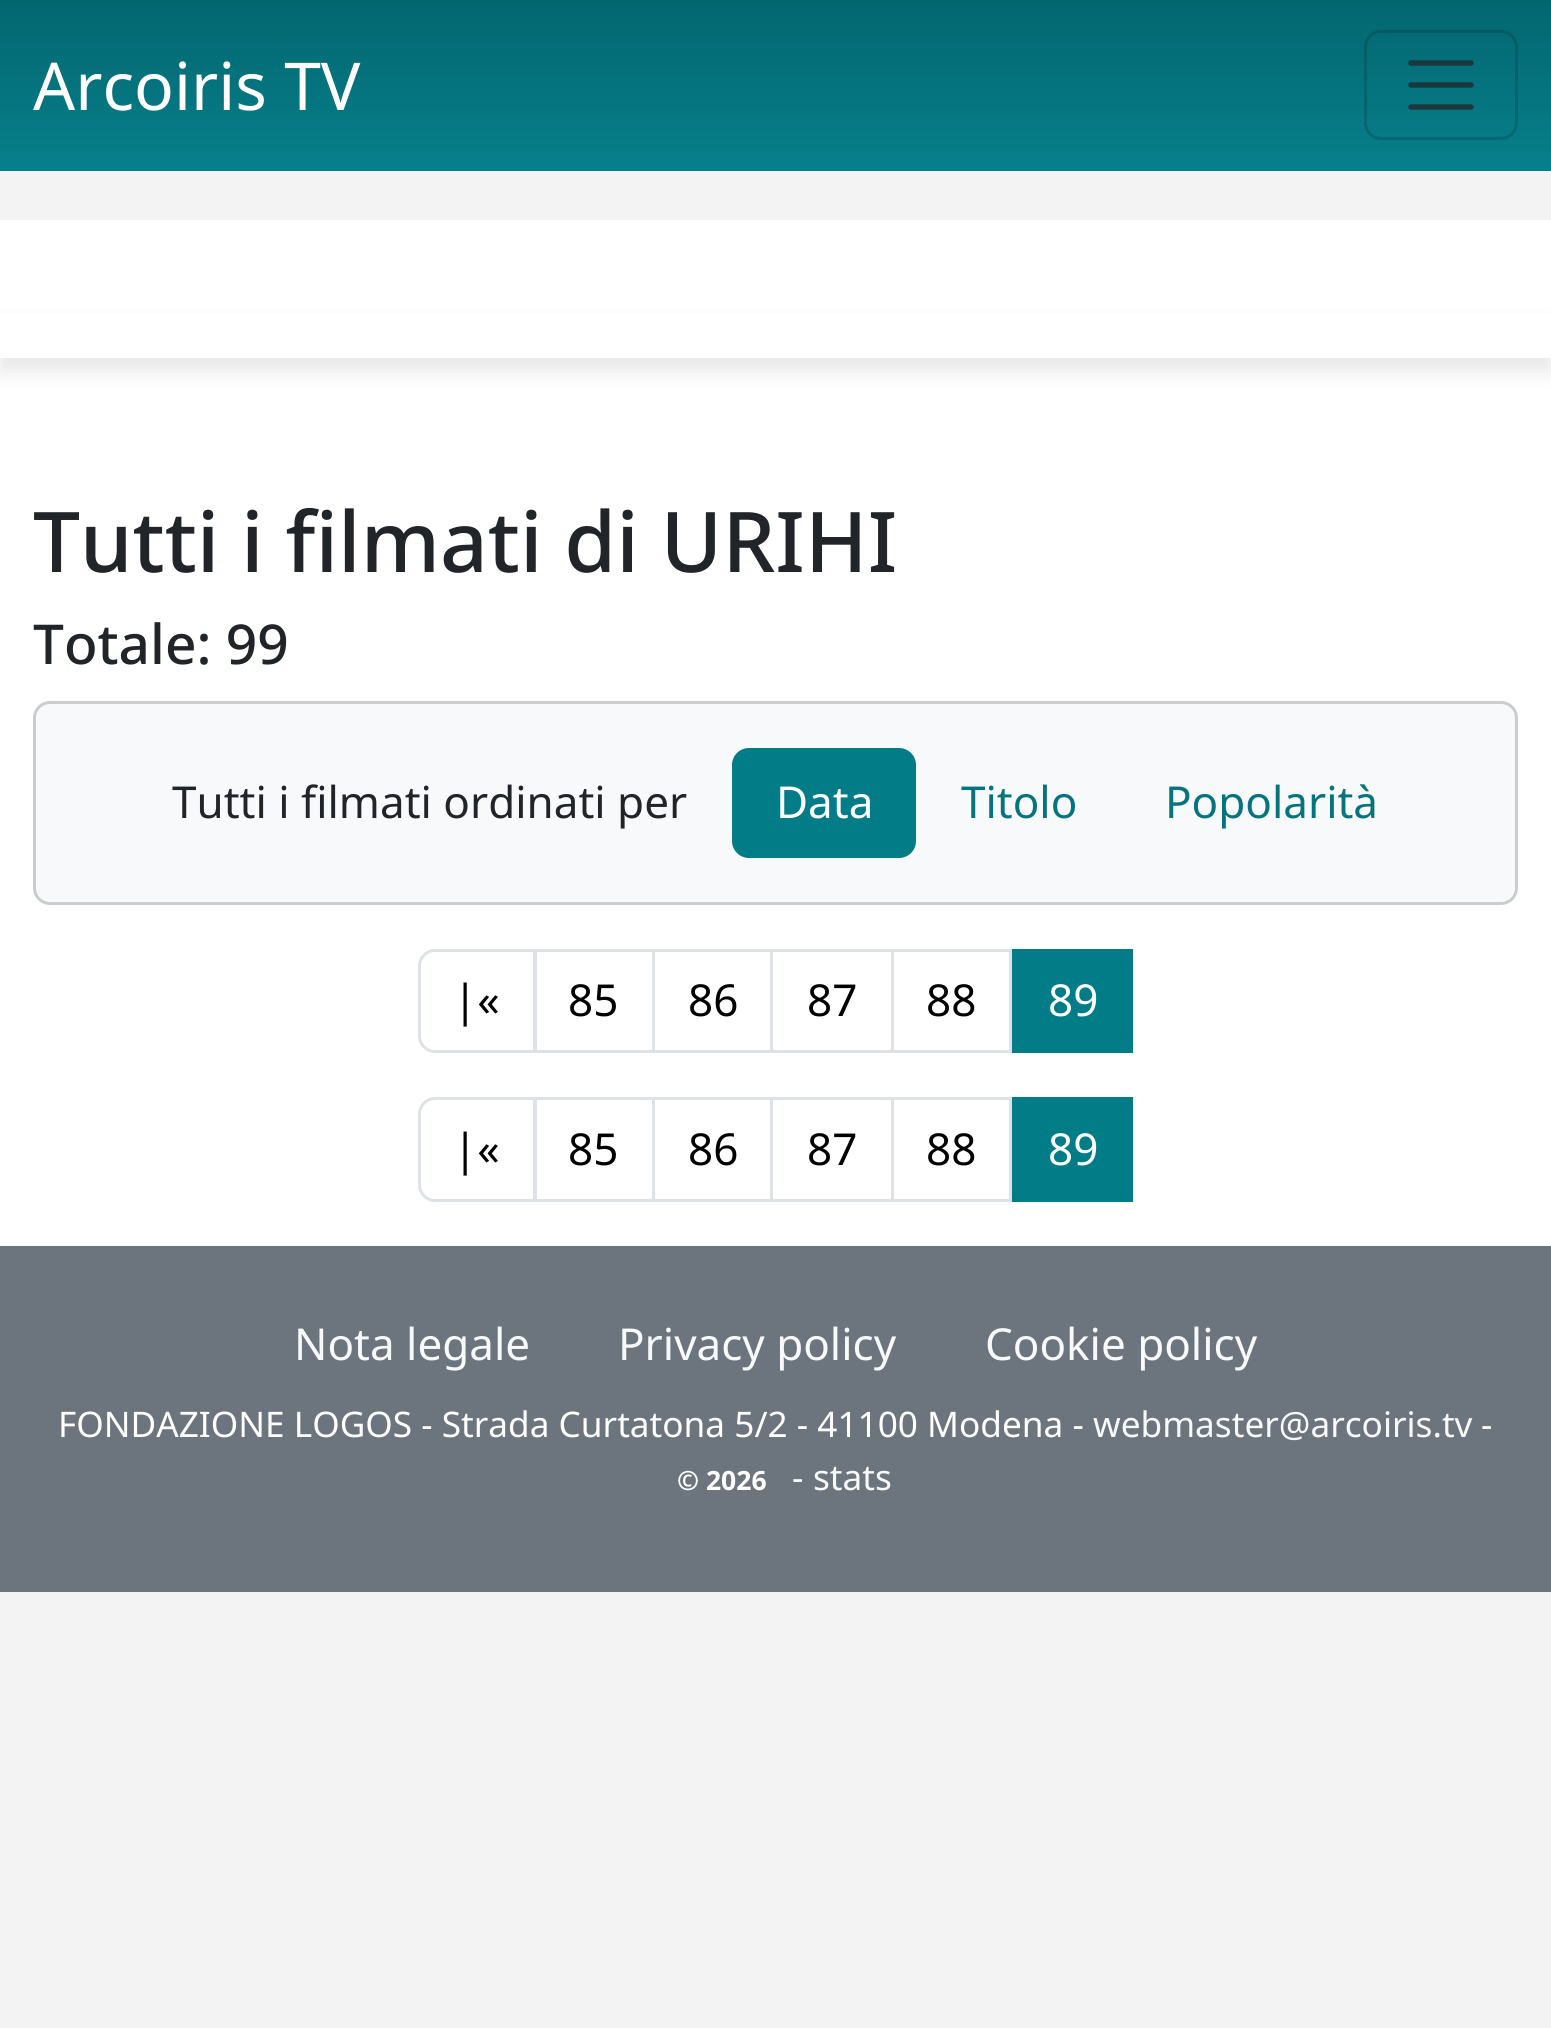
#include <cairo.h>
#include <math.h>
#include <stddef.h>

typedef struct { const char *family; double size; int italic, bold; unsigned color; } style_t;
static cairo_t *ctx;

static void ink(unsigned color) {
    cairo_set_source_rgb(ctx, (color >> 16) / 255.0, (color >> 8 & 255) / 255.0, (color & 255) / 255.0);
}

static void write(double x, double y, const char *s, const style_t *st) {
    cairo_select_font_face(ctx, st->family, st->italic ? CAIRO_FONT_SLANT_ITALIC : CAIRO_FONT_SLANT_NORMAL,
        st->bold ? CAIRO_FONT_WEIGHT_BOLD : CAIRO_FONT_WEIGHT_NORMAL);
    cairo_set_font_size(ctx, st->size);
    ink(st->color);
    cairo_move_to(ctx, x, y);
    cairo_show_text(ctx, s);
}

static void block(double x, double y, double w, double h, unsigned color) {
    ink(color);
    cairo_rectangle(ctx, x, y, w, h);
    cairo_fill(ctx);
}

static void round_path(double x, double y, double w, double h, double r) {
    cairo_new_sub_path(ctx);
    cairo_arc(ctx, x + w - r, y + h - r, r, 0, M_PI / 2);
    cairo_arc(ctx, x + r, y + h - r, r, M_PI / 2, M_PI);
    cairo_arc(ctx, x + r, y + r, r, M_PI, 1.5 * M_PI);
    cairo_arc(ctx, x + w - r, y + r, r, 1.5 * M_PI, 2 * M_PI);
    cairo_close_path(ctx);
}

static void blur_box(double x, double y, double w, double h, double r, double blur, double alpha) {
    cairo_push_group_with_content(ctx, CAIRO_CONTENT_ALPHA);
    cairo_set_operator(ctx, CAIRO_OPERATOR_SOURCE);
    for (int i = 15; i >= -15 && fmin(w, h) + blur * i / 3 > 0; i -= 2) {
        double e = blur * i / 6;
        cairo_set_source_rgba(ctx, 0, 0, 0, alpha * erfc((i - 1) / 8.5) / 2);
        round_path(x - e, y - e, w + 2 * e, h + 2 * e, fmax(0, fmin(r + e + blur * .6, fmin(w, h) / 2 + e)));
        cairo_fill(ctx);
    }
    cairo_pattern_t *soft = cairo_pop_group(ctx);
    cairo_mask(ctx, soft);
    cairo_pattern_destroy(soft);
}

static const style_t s1 = {"Noto Sans", 66, 0, 0, 0xffffff};
static const style_t s2 = {"Noto Sans Medium", 83.75, 0, 0, 0x212529};
static const style_t s3 = {"Noto Sans Medium", 55, 0, 0, 0x212529};
static const style_t s4 = {"Noto Sans", 44, 0, 0, 0x212529};
static const style_t s5 = {"Noto Sans", 44, 0, 0, 0xffffff};
static const style_t s6 = {"Noto Sans", 44, 0, 0, 0x05747e};
static const style_t s7 = {"Noto Sans", 44, 0, 0, 0x000000};
static const style_t s8 = {"Noto Sans", 44, 0, 0, 0xf8f9fa};
static const style_t s9 = {"Noto Sans", 35.2, 0, 0, 0xffffff};
static const style_t s10 = {"Noto Sans", 35.2, 0, 0, 0xf8f9fa};
static const style_t s11 = {"Noto Sans", 26.5, 0, 1, 0xffffff};

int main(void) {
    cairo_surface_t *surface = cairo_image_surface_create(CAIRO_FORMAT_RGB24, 1551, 2028);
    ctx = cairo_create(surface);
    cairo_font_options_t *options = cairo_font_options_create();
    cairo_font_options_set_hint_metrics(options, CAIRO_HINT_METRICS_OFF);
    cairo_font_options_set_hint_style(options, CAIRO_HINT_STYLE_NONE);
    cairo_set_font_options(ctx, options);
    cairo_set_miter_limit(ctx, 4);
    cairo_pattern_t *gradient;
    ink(0xf3f3f3);
    cairo_paint(ctx);
    gradient = cairo_pattern_create_linear(776, 0, 776, 171);
    cairo_pattern_add_color_stop_rgba(gradient, 0, 0.012, 0.4, 0.435, 1);
    cairo_pattern_add_color_stop_rgba(gradient, 1, 0.027, 0.502, 0.545, 1);
    cairo_set_source(ctx, gradient);
    cairo_pattern_destroy(gradient);
    cairo_rectangle(ctx, 0, 0, 1551, 171);
    cairo_fill(ctx);
    write(33, 110, "Arcoiris TV", &s1);
    round_path(1365.5, 31.5, 151, 107, 15.5);
    cairo_set_source_rgba(ctx, 0, 0, 0, 0.15);
    cairo_set_line_width(ctx, 3);
    cairo_stroke(ctx);
    cairo_new_path(ctx);
    cairo_move_to(ctx, 1411, 63);
    cairo_line_to(ctx, 1471, 63);
    cairo_move_to(ctx, 1411, 85);
    cairo_line_to(ctx, 1471, 85);
    cairo_move_to(ctx, 1411, 107);
    cairo_line_to(ctx, 1471, 107);
    cairo_set_source_rgba(ctx, 0.129, 0.145, 0.161, 0.75);
    cairo_set_line_width(ctx, 5.5);
    cairo_set_line_cap(ctx, CAIRO_LINE_CAP_ROUND);
    cairo_stroke(ctx);
    block(0, 220, 1551, 1026, 0xffffff);
    ink(0x000000);
    blur_box(0, 327, 1551, 44, 0, 11, 0.1);
    block(0, 314, 1551, 44, 0xffffff);
    write(33, 572, "Tutti i filmati di URIHI", &s2);
    write(33, 664, "Totale: 99", &s3);
    ink(0xf8f9fa);
    round_path(33, 701, 1485, 204, 17);
    cairo_fill(ctx);
    round_path(34.5, 702.5, 1482, 201, 15.5);
    cairo_set_source_rgba(ctx, 0, 0, 0, 0.18);
    cairo_set_line_width(ctx, 3);
    cairo_set_line_cap(ctx, CAIRO_LINE_CAP_BUTT);
    cairo_stroke(ctx);
    write(172, 818, "Tutti i filmati ordinati per", &s4);
    ink(0x027d88);
    round_path(732, 748, 184, 110, 17);
    cairo_fill(ctx);
    write(776, 818, "Data", &s5);
    write(961, 818, "Titolo", &s6);
    write(1165, 818, "Popolarità", &s6);
    cairo_new_path(ctx);
    cairo_move_to(ctx, 435, 950.5);
    cairo_line_to(ctx, 534.5, 950.5);
    cairo_line_to(ctx, 534.5, 1051.5);
    cairo_line_to(ctx, 435, 1051.5);
    cairo_curve_to(ctx, 426.5, 1051.5, 419.5, 1044.5, 419.5, 1036);
    cairo_line_to(ctx, 419.5, 966);
    cairo_curve_to(ctx, 419.5, 957.5, 426.5, 950.5, 435, 950.5);
    cairo_close_path(ctx);
    ink(0xdee2e6);
    cairo_stroke(ctx);
    write(453, 1016, "|«", &s7);
    cairo_rectangle(ctx, 535.5, 950.5, 118, 101);
    ink(0xdee2e6);
    cairo_stroke(ctx);
    write(568, 1016, "85", &s7);
    cairo_rectangle(ctx, 653.5, 950.5, 118, 101);
    ink(0xdee2e6);
    cairo_stroke(ctx);
    write(688, 1016, "86", &s7);
    cairo_rectangle(ctx, 771.5, 950.5, 121, 101);
    ink(0xdee2e6);
    cairo_stroke(ctx);
    write(807, 1016, "87", &s7);
    cairo_rectangle(ctx, 892.5, 950.5, 118, 101);
    ink(0xdee2e6);
    cairo_stroke(ctx);
    write(926, 1016, "88", &s7);
    block(1012, 949, 121, 104, 0x027d88);
    write(1048, 1016, "89", &s5);
    cairo_new_path(ctx);
    cairo_move_to(ctx, 435, 1098.5);
    cairo_line_to(ctx, 534.5, 1098.5);
    cairo_line_to(ctx, 534.5, 1200.5);
    cairo_line_to(ctx, 435, 1200.5);
    cairo_curve_to(ctx, 426.5, 1200.5, 419.5, 1193.5, 419.5, 1185);
    cairo_line_to(ctx, 419.5, 1114);
    cairo_curve_to(ctx, 419.5, 1105.5, 426.5, 1098.5, 435, 1098.5);
    cairo_close_path(ctx);
    ink(0xdee2e6);
    cairo_stroke(ctx);
    write(453, 1165, "|«", &s7);
    cairo_rectangle(ctx, 535.5, 1098.5, 118, 102);
    ink(0xdee2e6);
    cairo_stroke(ctx);
    write(568, 1165, "85", &s7);
    cairo_rectangle(ctx, 653.5, 1098.5, 118, 102);
    ink(0xdee2e6);
    cairo_stroke(ctx);
    write(688, 1165, "86", &s7);
    cairo_rectangle(ctx, 771.5, 1098.5, 121, 102);
    ink(0xdee2e6);
    cairo_stroke(ctx);
    write(807, 1165, "87", &s7);
    cairo_rectangle(ctx, 892.5, 1098.5, 118, 102);
    ink(0xdee2e6);
    cairo_stroke(ctx);
    write(926, 1165, "88", &s7);
    block(1012, 1097, 121, 105, 0x027d88);
    write(1048, 1165, "89", &s5);
    block(0, 1246, 1551, 346, 0x6c757d);
    write(294, 1360, "Nota legale", &s8);
    write(618, 1360, "Privacy policy", &s8);
    write(985, 1360, "Cookie policy", &s8);
    write(58, 1437, "FONDAZIONE LOGOS - Strada Curtatona 5/2 - 41100 Modena -", &s9);
    write(1093, 1437, "webmaster@arcoiris.tv", &s10);
    write(1481, 1437, "-", &s9);
    write(677, 1490, "© 2026", &s11);
    write(792, 1490, "-", &s9);
    write(813, 1490, "stats", &s10);
    cairo_surface_write_to_png(surface, "screenshot.png");
    cairo_font_options_destroy(options);
    cairo_destroy(ctx);
    cairo_surface_destroy(surface);
    return 0;
}
